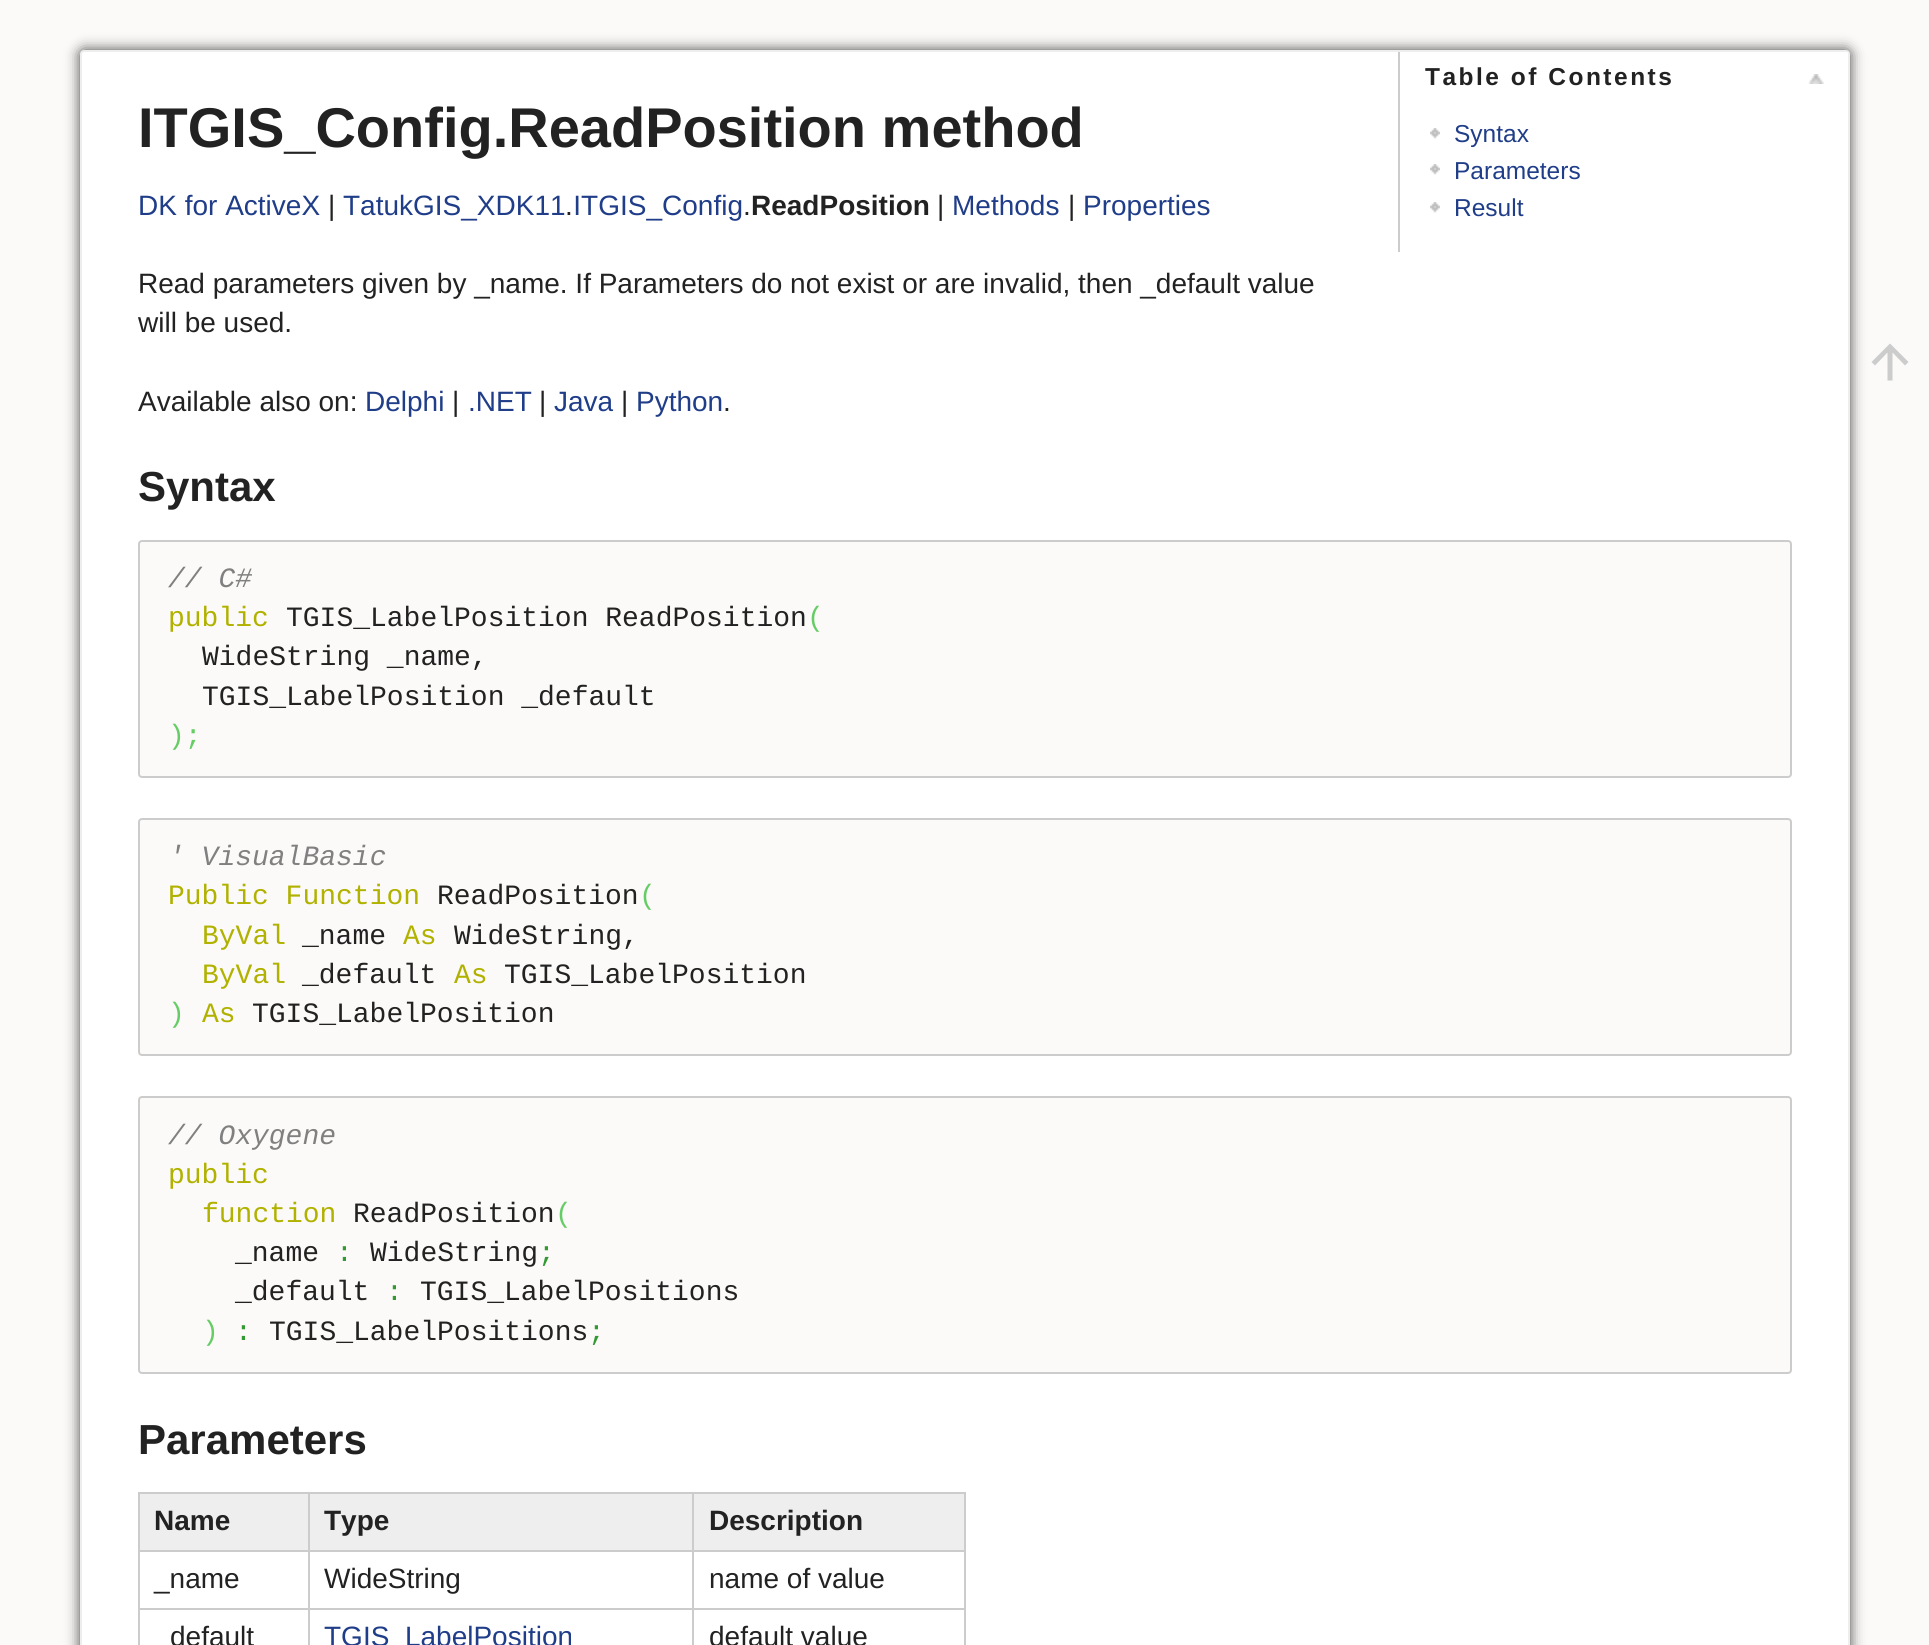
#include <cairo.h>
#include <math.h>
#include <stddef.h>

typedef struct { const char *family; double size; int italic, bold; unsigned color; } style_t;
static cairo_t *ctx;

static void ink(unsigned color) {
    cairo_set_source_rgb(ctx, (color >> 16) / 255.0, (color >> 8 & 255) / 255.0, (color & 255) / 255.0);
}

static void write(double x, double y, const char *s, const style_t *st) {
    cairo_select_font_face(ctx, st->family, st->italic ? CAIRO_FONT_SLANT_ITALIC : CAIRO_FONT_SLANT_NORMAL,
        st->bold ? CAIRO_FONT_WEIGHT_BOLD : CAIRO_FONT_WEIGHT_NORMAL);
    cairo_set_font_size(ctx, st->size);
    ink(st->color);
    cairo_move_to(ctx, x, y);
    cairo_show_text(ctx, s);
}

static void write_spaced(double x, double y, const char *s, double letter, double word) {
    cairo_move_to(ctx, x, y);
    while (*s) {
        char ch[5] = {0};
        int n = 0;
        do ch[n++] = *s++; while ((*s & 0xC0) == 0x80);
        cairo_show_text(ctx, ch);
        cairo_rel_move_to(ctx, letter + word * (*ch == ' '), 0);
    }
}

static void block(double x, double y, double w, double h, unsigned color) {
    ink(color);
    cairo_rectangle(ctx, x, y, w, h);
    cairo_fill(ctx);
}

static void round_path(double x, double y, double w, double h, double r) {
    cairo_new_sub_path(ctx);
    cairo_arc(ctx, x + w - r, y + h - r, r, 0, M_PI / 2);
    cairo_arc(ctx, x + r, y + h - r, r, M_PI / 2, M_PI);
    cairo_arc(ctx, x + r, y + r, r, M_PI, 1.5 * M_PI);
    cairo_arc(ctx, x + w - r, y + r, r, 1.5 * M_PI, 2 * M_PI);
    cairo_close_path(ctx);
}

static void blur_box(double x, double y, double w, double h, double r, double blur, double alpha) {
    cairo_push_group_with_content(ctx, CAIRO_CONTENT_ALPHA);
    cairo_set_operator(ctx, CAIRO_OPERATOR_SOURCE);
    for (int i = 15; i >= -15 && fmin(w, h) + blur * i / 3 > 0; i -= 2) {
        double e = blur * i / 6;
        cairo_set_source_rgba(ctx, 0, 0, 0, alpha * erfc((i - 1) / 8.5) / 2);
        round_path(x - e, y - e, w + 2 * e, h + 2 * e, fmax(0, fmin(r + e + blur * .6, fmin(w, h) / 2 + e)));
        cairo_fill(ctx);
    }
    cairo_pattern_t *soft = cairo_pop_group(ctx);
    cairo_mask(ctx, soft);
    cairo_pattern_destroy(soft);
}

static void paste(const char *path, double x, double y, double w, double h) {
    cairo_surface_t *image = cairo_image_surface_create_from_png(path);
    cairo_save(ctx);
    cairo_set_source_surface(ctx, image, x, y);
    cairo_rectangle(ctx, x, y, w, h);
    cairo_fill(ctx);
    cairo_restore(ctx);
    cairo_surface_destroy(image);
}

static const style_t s1 = {"Liberation Sans", 56, 0, 1, 0x222222};
static const style_t s2 = {"Liberation Sans", 24.5, 0, 0, 0x1f3d88};
static const style_t s3 = {"Liberation Sans", 28, 0, 0, 0x1f3d88};
static const style_t s4 = {"Liberation Sans", 28, 0, 0, 0x222222};
static const style_t s5 = {"Liberation Sans", 28, 0, 1, 0x222222};
static const style_t s6 = {"Liberation Sans", 42, 0, 1, 0x222222};
static const style_t s7 = {"Liberation Mono", 28, 1, 0, 0x808080};
static const style_t s8 = {"Liberation Mono", 28, 0, 0, 0xb1b100};
static const style_t s9 = {"Liberation Mono", 28, 0, 0, 0x222222};
static const style_t s10 = {"Liberation Mono", 28, 0, 0, 0x66cc66};
static const style_t s11 = {"Liberation Mono", 28, 0, 0, 0x339933};

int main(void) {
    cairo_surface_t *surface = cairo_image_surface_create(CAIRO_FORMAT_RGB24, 1929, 1645);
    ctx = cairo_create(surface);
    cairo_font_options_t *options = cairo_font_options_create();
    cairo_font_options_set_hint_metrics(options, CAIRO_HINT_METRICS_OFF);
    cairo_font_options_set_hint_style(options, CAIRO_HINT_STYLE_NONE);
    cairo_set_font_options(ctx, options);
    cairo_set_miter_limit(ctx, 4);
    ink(0xfbfaf8);
    cairo_paint(ctx);
    ink(0x404040);
    blur_box(80, 50, 1770, 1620, 4, 7, 1);
    ink(0xffffff);
    round_path(81, 51, 1768, 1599, 3);
    cairo_fill_preserve(ctx);
    ink(0xeeeeee);
    cairo_stroke(ctx);
    write(138, 147, "ITGIS_Config.ReadPosition method", &s1);
    ink(0xffffff);
    cairo_new_path(ctx);
    cairo_move_to(ctx, 1398, 52);
    cairo_line_to(ctx, 1846, 52);
    cairo_curve_to(ctx, 1847, 52, 1848, 53, 1848, 54);
    cairo_line_to(ctx, 1848, 252);
    cairo_line_to(ctx, 1398, 252);
    cairo_close_path(ctx);
    cairo_fill(ctx);
    block(1398, 52, 2, 200, 0xcccccc);
    cairo_set_font_size(ctx, 24.5);
    ink(0x222222);
    write_spaced(1425, 85, "Table of Contents", 2.5, 0);
    paste("pic1.png", 1808, 74, 16, 10);
    paste("pic2.png", 1430, 128, 10, 11);
    write(1454, 142, "Syntax", &s2);
    paste("pic2.png", 1430, 164, 10, 11);
    write(1454, 179, "Parameters", &s2);
    paste("pic2.png", 1430, 202, 10, 11);
    write(1454, 216, "Result", &s2);
    write(138, 215, "DK for ActiveX", &s3);
    write(328, 215, "|", &s4);
    write(343, 215, "TatukGIS_XDK11 ITGIS_Config", &s3);
    write(751, 215, "ReadPosition", &s5);
    write(937, 215, "|", &s4);
    write(952, 215, "Methods", &s3);
    write(1068, 215, "|", &s4);
    write(1083, 215, "Properties", &s3);
    write(565, 215, ".", &s4);
    write(743, 215, ".", &s4);
    write(138, 293, "Read parameters given by _name. If Parameters do not exist or are invalid, then _default value", &s4);
    write(138, 332, "will be used.", &s4);
    write(138, 411, "Available also on:", &s4);
    write(365, 411, "Delphi", &s3);
    write(452, 411, "|", &s4);
    write(468, 411, ".NET", &s3);
    write(539, 411, "|", &s4);
    write(554, 411, "Java", &s3);
    write(621, 411, "|", &s4);
    write(636, 411, "Python", &s3);
    write(723, 411, ".", &s4);
    write(138, 501, "Syntax", &s6);
    ink(0xfbfaf8);
    round_path(139, 541, 1652, 236, 3);
    cairo_fill_preserve(ctx);
    ink(0xcccccc);
    cairo_stroke(ctx);
    write(168, 587, "// C#", &s7);
    write(168, 626, "public", &s8);
    write(286, 626, "TGIS_LabelPosition ReadPosition", &s9);
    write(807, 626, "(", &s10);
    write(202, 665, "WideString _name,", &s9);
    write(202, 705, "TGIS_LabelPosition _default", &s9);
    write(168, 744, ");", &s10);
    ink(0xfbfaf8);
    round_path(139, 819, 1652, 236, 3);
    cairo_fill_preserve(ctx);
    ink(0xcccccc);
    cairo_stroke(ctx);
    write(168, 865, "' VisualBasic", &s7);
    write(168, 904, "Public Function", &s8);
    write(437, 904, "ReadPosition", &s9);
    write(639, 904, "(", &s10);
    write(202, 944, "ByVal", &s8);
    write(302, 944, "_name", &s9);
    write(403, 944, "As", &s8);
    write(454, 944, "WideString,", &s9);
    write(202, 983, "ByVal", &s8);
    write(302, 983, "_default", &s9);
    write(454, 983, "As", &s8);
    write(504, 983, "TGIS_LabelPosition", &s9);
    write(168, 1022, ")", &s10);
    write(202, 1022, "As", &s8);
    write(252, 1022, "TGIS_LabelPosition", &s9);
    ink(0xfbfaf8);
    round_path(139, 1097, 1652, 276, 3);
    cairo_fill_preserve(ctx);
    ink(0xcccccc);
    cairo_stroke(ctx);
    write(168, 1144, "// Oxygene", &s7);
    write(168, 1183, "public", &s8);
    write(202, 1222, "function", &s8);
    write(353, 1222, "ReadPosition", &s9);
    write(555, 1222, "(", &s10);
    write(235, 1261, "_name", &s9);
    write(336, 1261, ":", &s11);
    write(370, 1261, "WideString", &s9);
    write(538, 1261, ";", &s11);
    write(235, 1300, "_default", &s9);
    write(386, 1300, ":", &s11);
    write(420, 1300, "TGIS_LabelPositions", &s9);
    write(202, 1340, ")", &s10);
    write(235, 1340, ":", &s11);
    write(269, 1340, "TGIS_LabelPositions", &s9);
    write(588, 1340, ";", &s11);
    write(138, 1454, "Parameters", &s6);
    block(138, 1492, 828, 2, 0xcccccc);
    block(964, 1492, 2, 153, 0xcccccc);
    block(138, 1492, 2, 153, 0xcccccc);
    block(140, 1494, 168, 56, 0xeeeeee);
    write(154, 1530, "Name", &s5);
    block(310, 1494, 382, 56, 0xeeeeee);
    block(692, 1550, 274, 2, 0xcccccc);
    block(692, 1608, 274, 2, 0xcccccc);
    block(692, 1608, 2, 37, 0xcccccc);
    block(308, 1608, 386, 2, 0xcccccc);
    block(692, 1550, 2, 60, 0xcccccc);
    block(308, 1550, 386, 2, 0xcccccc);
    block(308, 1608, 2, 37, 0xcccccc);
    block(138, 1608, 172, 2, 0xcccccc);
    block(308, 1550, 2, 60, 0xcccccc);
    block(138, 1550, 172, 2, 0xcccccc);
    block(308, 1492, 2, 60, 0xcccccc);
    write(324, 1530, "Type", &s5);
    block(694, 1494, 270, 56, 0xeeeeee);
    block(692, 1492, 2, 60, 0xcccccc);
    write(709, 1530, "Description", &s5);
    write(154, 1588, "_name", &s4);
    write(324, 1588, "WideString", &s4);
    write(709, 1588, "name of value", &s4);
    write(170, 1646, "default", &s4);
    write(324, 1646, "TGIS_LabelPosition", &s3);
    write(709, 1646, "default value", &s4);
    ink(0xcccccc);
    cairo_new_path(ctx);
    cairo_move_to(ctx, 1892.5, 380.5);
    cairo_line_to(ctx, 1887.5, 380.5);
    cairo_line_to(ctx, 1887.5, 352.5);
    cairo_line_to(ctx, 1875, 365.5);
    cairo_line_to(ctx, 1871.5, 362);
    cairo_line_to(ctx, 1890, 343.5);
    cairo_line_to(ctx, 1908.5, 362);
    cairo_line_to(ctx, 1905, 365.5);
    cairo_line_to(ctx, 1892.5, 352.5);
    cairo_close_path(ctx);
    cairo_fill(ctx);
    cairo_surface_write_to_png(surface, "screenshot.png");
    cairo_font_options_destroy(options);
    cairo_destroy(ctx);
    cairo_surface_destroy(surface);
    return 0;
}
